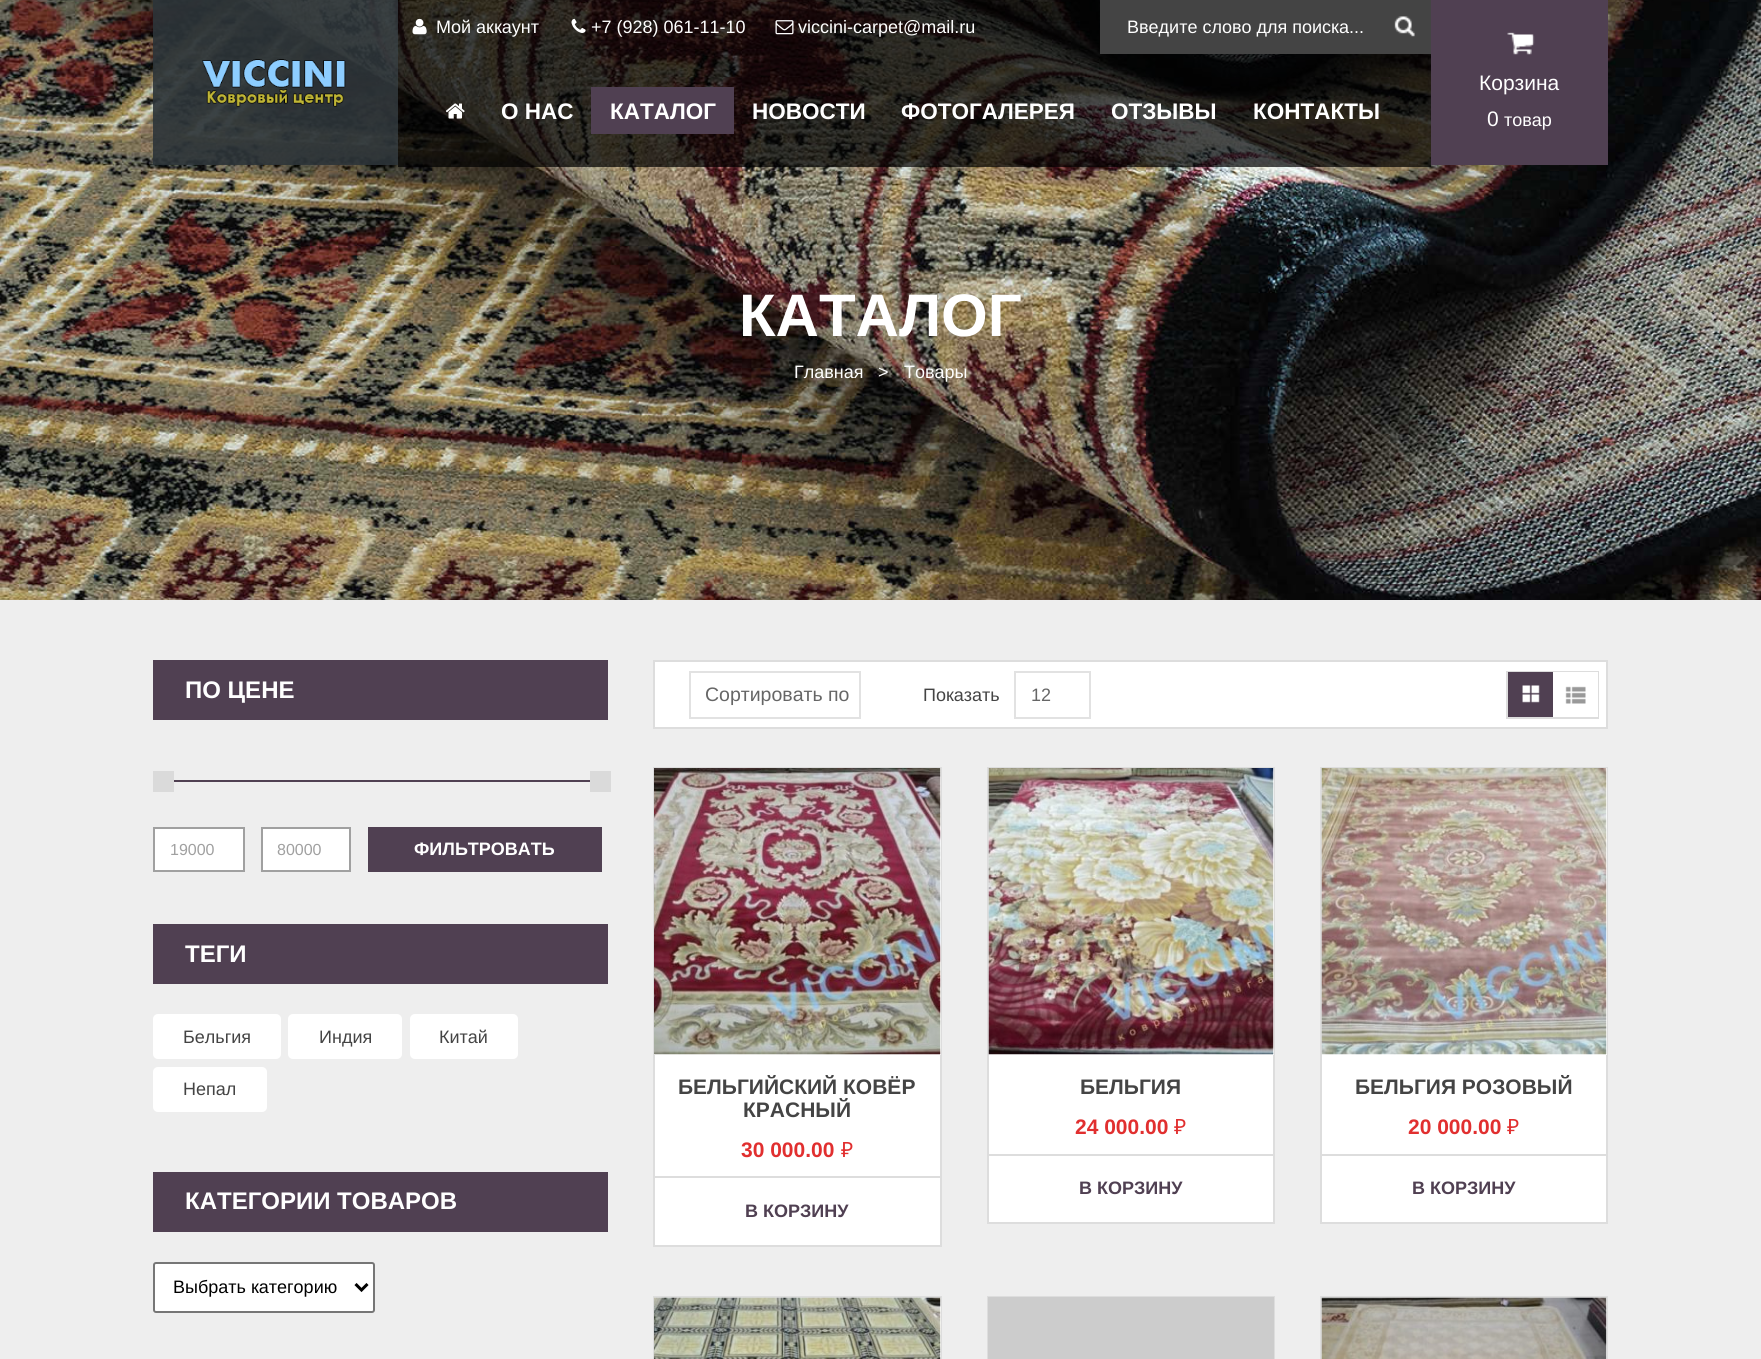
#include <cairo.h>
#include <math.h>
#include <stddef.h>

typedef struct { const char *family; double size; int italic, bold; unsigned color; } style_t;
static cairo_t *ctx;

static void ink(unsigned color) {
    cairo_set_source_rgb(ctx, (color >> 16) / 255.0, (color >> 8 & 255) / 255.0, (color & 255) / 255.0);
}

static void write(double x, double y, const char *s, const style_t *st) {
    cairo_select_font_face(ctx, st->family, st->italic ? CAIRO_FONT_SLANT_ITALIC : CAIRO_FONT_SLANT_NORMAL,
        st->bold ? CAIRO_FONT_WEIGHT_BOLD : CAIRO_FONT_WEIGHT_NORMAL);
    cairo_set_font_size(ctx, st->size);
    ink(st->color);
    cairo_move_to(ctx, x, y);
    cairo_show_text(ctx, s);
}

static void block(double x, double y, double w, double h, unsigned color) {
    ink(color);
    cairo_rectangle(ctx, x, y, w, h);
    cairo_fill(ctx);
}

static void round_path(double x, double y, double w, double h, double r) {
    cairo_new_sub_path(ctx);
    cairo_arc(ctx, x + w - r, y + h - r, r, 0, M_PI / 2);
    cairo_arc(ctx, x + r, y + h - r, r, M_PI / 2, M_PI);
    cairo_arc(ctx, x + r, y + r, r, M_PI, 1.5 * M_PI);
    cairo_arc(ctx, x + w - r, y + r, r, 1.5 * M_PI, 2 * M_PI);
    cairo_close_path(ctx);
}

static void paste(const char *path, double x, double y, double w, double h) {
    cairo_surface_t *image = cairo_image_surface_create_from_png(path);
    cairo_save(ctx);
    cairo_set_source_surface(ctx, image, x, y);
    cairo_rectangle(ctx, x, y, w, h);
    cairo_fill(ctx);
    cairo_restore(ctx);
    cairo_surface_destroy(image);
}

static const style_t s1 = {"Liberation Sans", 18, 0, 0, 0xffffff};
static const style_t s2 = {"Liberation Sans", 22.5, 0, 1, 0xffffff};
static const style_t s3 = {"Liberation Sans", 21, 0, 0, 0xffffff};
static const style_t s4 = {"Liberation Sans", 60, 0, 1, 0xffffff};
static const style_t s5 = {"Liberation Sans", 24, 0, 1, 0xffffff};
static const style_t s6 = {"Liberation Sans", 16, 0, 0, 0xa0a0a0};
static const style_t s7 = {"Liberation Sans", 18, 0, 1, 0xffffff};
static const style_t s8 = {"Liberation Sans", 18, 0, 0, 0x444444};
static const style_t s9 = {"Liberation Sans", 18, 0, 0, 0x000000};
static const style_t s10 = {"Liberation Sans", 19.5, 0, 0, 0x666666};
static const style_t s11 = {"Liberation Sans", 18, 0, 0, 0x666666};
static const style_t s12 = {"Liberation Sans", 21, 0, 1, 0x444444};
static const style_t s13 = {"Liberation Sans", 21, 0, 1, 0xe12f2f};
static const style_t s14 = {"Noto Sans", 21, 0, 0, 0xe12f2f};
static const style_t s15 = {"Liberation Sans", 18, 0, 1, 0x504052};

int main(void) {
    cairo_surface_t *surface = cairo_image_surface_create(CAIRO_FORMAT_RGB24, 1761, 1359);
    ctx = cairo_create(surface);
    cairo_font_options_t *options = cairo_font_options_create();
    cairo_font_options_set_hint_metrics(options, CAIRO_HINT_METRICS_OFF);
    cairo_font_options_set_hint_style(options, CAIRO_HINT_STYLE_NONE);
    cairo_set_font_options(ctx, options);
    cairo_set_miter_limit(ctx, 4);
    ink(0xeeeeee);
    cairo_paint(ctx);
    paste("pic8.png", 0, 0, 1761, 600);
    cairo_set_source_rgba(ctx, 0.176, 0.208, 0.224, 0.9);
    cairo_rectangle(ctx, 153, 0, 245, 165);
    cairo_fill(ctx);
    paste("pic1.png", 202, 59, 144, 48);
    cairo_set_source_rgba(ctx, 0, 0, 0, 0.7);
    cairo_rectangle(ctx, 398, 0, 1033, 167);
    cairo_fill(ctx);
    paste("pic2.png", 412, 18, 15, 17);
    write(436, 33, "Мой аккаунт", &s1);
    paste("pic3.png", 571, 18, 15, 15);
    write(591, 33, "+7 (928) 061-11-10", &s1);
    paste("pic4.png", 775, 20, 19, 15);
    write(798, 33, "viccini-carpet@mail.ru", &s1);
    block(1100, 0, 331, 54, 0x444444);
    write(1127, 33, "Введите слово для поиска...", &s1);
    paste("pic5.png", 1394, 16, 21, 21);
    paste("pic6.png", 445, 103, 20, 16);
    write(501, 119, "О НАС", &s2);
    block(591, 87, 143, 47, 0x504052);
    write(610, 119, "КАТАЛОГ", &s2);
    write(752, 119, "НОВОСТИ", &s2);
    write(901, 119, "ФОТОГАЛЕРЕЯ", &s2);
    write(1111, 119, "ОТЗЫВЫ", &s2);
    write(1253, 119, "КОНТАКТЫ", &s2);
    block(1431, 0, 177, 165, 0x504052);
    paste("pic7.png", 1507, 32, 28, 23);
    write(1479, 90, "Корзина", &s3);
    write(1487, 126, "0", &s3);
    write(1504, 126, "товар", &s1);
    write(739, 336, "КАТАЛОГ", &s4);
    write(794, 378, "Главная", &s1);
    write(878, 378, ">", &s1);
    write(904, 378, "Товары", &s1);
    block(153, 660, 455, 60, 0x504052);
    write(185, 698, "ПО ЦЕНЕ", &s5);
    block(153, 771, 21, 21, 0xdadada);
    block(174, 780, 416, 2, 0x504052);
    block(590, 771, 21, 21, 0xdadada);
    ink(0xffffff);
    cairo_rectangle(ctx, 154, 828, 90, 43);
    cairo_fill_preserve(ctx);
    ink(0xa0a0a0);
    cairo_stroke(ctx);
    write(170, 855, "19000", &s6);
    ink(0xffffff);
    cairo_rectangle(ctx, 262, 828, 88, 43);
    cairo_fill_preserve(ctx);
    ink(0xa0a0a0);
    cairo_stroke(ctx);
    write(277, 855, "80000", &s6);
    block(368, 827, 234, 45, 0x504052);
    write(414, 855, "ФИЛЬТРОВАТЬ", &s7);
    block(153, 924, 455, 60, 0x504052);
    write(185, 962, "ТЕГИ", &s5);
    round_path(153, 1014, 128, 45, 5);
    cairo_fill(ctx);
    write(183, 1043, "Бельгия", &s8);
    ink(0xffffff);
    round_path(288, 1014, 114, 45, 5);
    cairo_fill(ctx);
    write(319, 1043, "Индия", &s8);
    ink(0xffffff);
    round_path(410, 1014, 108, 45, 5);
    cairo_fill(ctx);
    write(439, 1043, "Китай", &s8);
    ink(0xffffff);
    round_path(153, 1067, 114, 45, 5);
    cairo_fill(ctx);
    write(183, 1095, "Непал", &s8);
    block(153, 1172, 455, 60, 0x504052);
    write(185, 1209, "КАТЕГОРИИ ТОВАРОВ", &s5);
    round_path(154, 1263, 220, 49, 2);
    cairo_fill_preserve(ctx);
    ink(0x767676);
    cairo_stroke(ctx);
    cairo_new_path(ctx);
    cairo_move_to(ctx, 355.5, 1284);
    cairo_line_to(ctx, 361.5, 1290);
    cairo_line_to(ctx, 367.5, 1284);
    ink(0x000000);
    cairo_set_line_width(ctx, 3);
    cairo_stroke(ctx);
    write(173, 1293, "Выбрать категорию", &s9);
    ink(0xffffff);
    cairo_rectangle(ctx, 654, 661, 953, 67);
    cairo_fill_preserve(ctx);
    ink(0xdddddd);
    cairo_set_line_width(ctx, 2);
    cairo_stroke(ctx);
    cairo_rectangle(ctx, 690, 672, 170, 46);
    ink(0xe2e2e2);
    cairo_stroke(ctx);
    write(705, 701, "Сортировать по", &s10);
    write(923, 701, "Показать", &s8);
    cairo_rectangle(ctx, 1015, 672, 75, 46);
    ink(0xe2e2e2);
    cairo_stroke(ctx);
    write(1031, 701, "12", &s11);
    cairo_rectangle(ctx, 1507, 672, 91, 46);
    ink(0xdddddd);
    cairo_stroke(ctx);
    block(1508, 672, 45, 45, 0x504052);
    paste("pic9.png", 1522, 685, 18, 18);
    block(1553, 672, 45, 45, 0xffffff);
    paste("pic10.png", 1565, 686, 21, 18);
    block(655, 1055, 285, 190, 0xffffff);
    cairo_rectangle(ctx, 654, 768, 287, 478);
    ink(0xdddddd);
    cairo_stroke(ctx);
    block(654, 768, 287, 287, 0xffffff);
    paste("pic11.png", 654, 768, 287, 287);
    write(678, 1094, "БЕЛЬГИЙСКИЙ КОВЁР", &s12);
    write(743, 1117, "КРАСНЫЙ", &s12);
    write(741, 1157, "30 000.00", &s13);
    write(841, 1157, "₽", &s14);
    block(654, 1176, 287, 2, 0xdddddd);
    write(745, 1217, "В КОРЗИНУ", &s15);
    block(989, 1055, 284, 167, 0xffffff);
    cairo_rectangle(ctx, 988, 768, 286, 455);
    ink(0xdddddd);
    cairo_stroke(ctx);
    block(989, 768, 285, 287, 0xffffff);
    paste("pic12.png", 988, 768, 286, 287);
    write(1080, 1094, "БЕЛЬГИЯ", &s12);
    write(1075, 1134, "24 000.00", &s13);
    write(1174, 1134, "₽", &s14);
    block(989, 1154, 285, 2, 0xdddddd);
    write(1079, 1194, "В КОРЗИНУ", &s15);
    block(1322, 1055, 284, 167, 0xffffff);
    cairo_rectangle(ctx, 1321, 768, 286, 455);
    ink(0xdddddd);
    cairo_stroke(ctx);
    block(1322, 768, 285, 287, 0xffffff);
    paste("pic13.png", 1321, 768, 286, 287);
    write(1355, 1094, "БЕЛЬГИЯ РОЗОВЫЙ", &s12);
    write(1408, 1134, "20 000.00", &s13);
    write(1507, 1134, "₽", &s14);
    block(1322, 1154, 285, 2, 0xdddddd);
    write(1412, 1194, "В КОРЗИНУ", &s15);
    cairo_rectangle(ctx, 654, 1297, 287, 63);
    ink(0xdddddd);
    cairo_stroke(ctx);
    block(940, 1298, 1, 61, 0xffffff);
    paste("pic14.png", 654, 1297, 287, 62);
    cairo_rectangle(ctx, 988, 1297, 286, 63);
    ink(0xdddddd);
    cairo_stroke(ctx);
    block(988, 1297, 286, 62, 0xcccccc);
    cairo_rectangle(ctx, 1321, 1297, 286, 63);
    ink(0xdddddd);
    cairo_stroke(ctx);
    block(1606, 1298, 1, 61, 0xffffff);
    paste("pic15.png", 1321, 1297, 286, 62);
    cairo_surface_write_to_png(surface, "screenshot.png");
    cairo_font_options_destroy(options);
    cairo_destroy(ctx);
    cairo_surface_destroy(surface);
    return 0;
}
